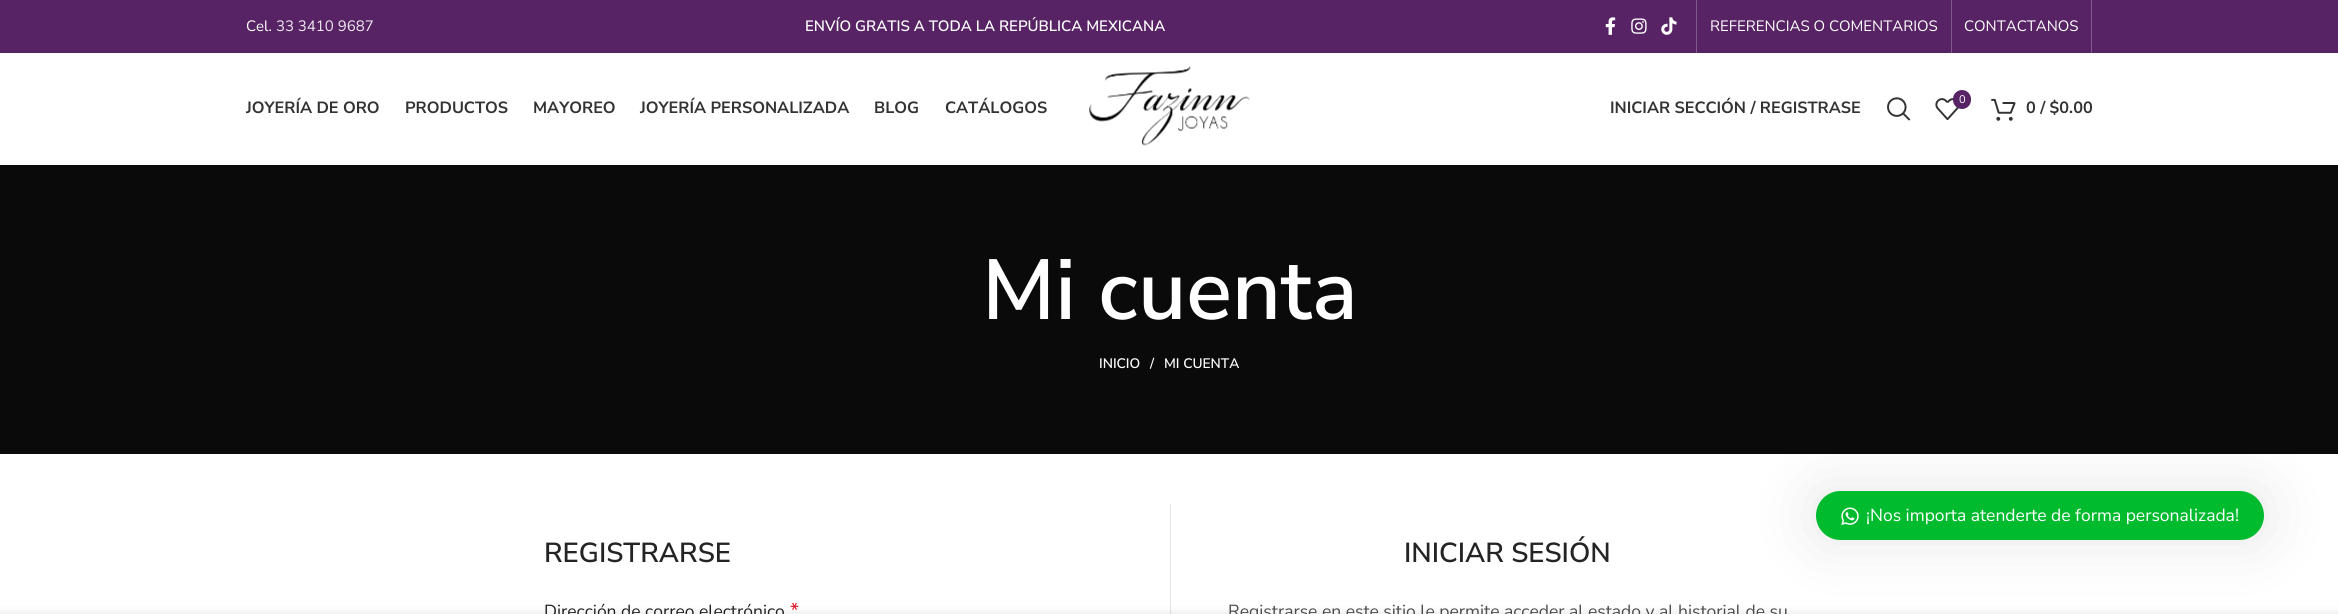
#include <cairo.h>
#include <math.h>
#include <stddef.h>

typedef struct { const char *family; double size; int italic, bold; unsigned color; } style_t;
static cairo_t *ctx;

static void ink(unsigned color) {
    cairo_set_source_rgb(ctx, (color >> 16) / 255.0, (color >> 8 & 255) / 255.0, (color & 255) / 255.0);
}

static void write(double x, double y, const char *s, const style_t *st) {
    cairo_select_font_face(ctx, st->family, st->italic ? CAIRO_FONT_SLANT_ITALIC : CAIRO_FONT_SLANT_NORMAL,
        st->bold ? CAIRO_FONT_WEIGHT_BOLD : CAIRO_FONT_WEIGHT_NORMAL);
    cairo_set_font_size(ctx, st->size);
    ink(st->color);
    cairo_move_to(ctx, x, y);
    cairo_show_text(ctx, s);
}

static void block(double x, double y, double w, double h, unsigned color) {
    ink(color);
    cairo_rectangle(ctx, x, y, w, h);
    cairo_fill(ctx);
}

static void round_path(double x, double y, double w, double h, double r) {
    cairo_new_sub_path(ctx);
    cairo_arc(ctx, x + w - r, y + h - r, r, 0, M_PI / 2);
    cairo_arc(ctx, x + r, y + h - r, r, M_PI / 2, M_PI);
    cairo_arc(ctx, x + r, y + r, r, M_PI, 1.5 * M_PI);
    cairo_arc(ctx, x + w - r, y + r, r, 1.5 * M_PI, 2 * M_PI);
    cairo_close_path(ctx);
}

static void blur_box(double x, double y, double w, double h, double r, double blur, double alpha) {
    cairo_push_group_with_content(ctx, CAIRO_CONTENT_ALPHA);
    cairo_set_operator(ctx, CAIRO_OPERATOR_SOURCE);
    for (int i = 15; i >= -15 && fmin(w, h) + blur * i / 3 > 0; i -= 2) {
        double e = blur * i / 6;
        cairo_set_source_rgba(ctx, 0, 0, 0, alpha * erfc((i - 1) / 8.5) / 2);
        round_path(x - e, y - e, w + 2 * e, h + 2 * e, fmax(0, fmin(r + e + blur * .6, fmin(w, h) / 2 + e)));
        cairo_fill(ctx);
    }
    cairo_pattern_t *soft = cairo_pop_group(ctx);
    cairo_mask(ctx, soft);
    cairo_pattern_destroy(soft);
}

static void paste(const char *path, double x, double y, double w, double h) {
    cairo_surface_t *image = cairo_image_surface_create_from_png(path);
    cairo_save(ctx);
    cairo_set_source_surface(ctx, image, x, y);
    cairo_rectangle(ctx, x, y, w, h);
    cairo_fill(ctx);
    cairo_restore(ctx);
    cairo_surface_destroy(image);
}

static const style_t s1 = {"Nunito Sans", 15, 0, 0, 0xffffff};
static const style_t s2 = {"Nunito Sans", 15, 0, 0, 0xeee9f0};
static const style_t s3 = {"Nunito Sans SemiBold", 15, 0, 0, 0xffffff};
static const style_t s4 = {"Nunito Sans", 16.25, 0, 1, 0x333333};
static const style_t s5 = {"Nunito Sans", 11, 0, 0, 0xffffff};
static const style_t s6 = {"Nunito Sans SemiBold", 85, 0, 0, 0xffffff};
static const style_t s7 = {"Nunito Sans SemiBold", 13.75, 0, 0, 0xffffff};
static const style_t s8 = {"Nunito Sans SemiBold", 27.5, 0, 0, 0x242424};
static const style_t s9 = {"Nunito Sans", 17.5, 0, 0, 0x242424};
static const style_t s10 = {"Nunito Sans", 20, 0, 0, 0xe01020};
static const style_t s11 = {"Nunito Sans", 17.5, 0, 0, 0x4f4f4f};
static const style_t s12 = {"Nunito Sans", 17.5, 0, 0, 0xffffff};

int main(void) {
    cairo_surface_t *surface = cairo_image_surface_create(CAIRO_FORMAT_RGB24, 2338, 614);
    ctx = cairo_create(surface);
    cairo_font_options_t *options = cairo_font_options_create();
    cairo_font_options_set_hint_metrics(options, CAIRO_HINT_METRICS_OFF);
    cairo_font_options_set_hint_style(options, CAIRO_HINT_STYLE_NONE);
    cairo_set_font_options(ctx, options);
    cairo_set_miter_limit(ctx, 4);
    ink(0xffffff);
    cairo_paint(ctx);
    block(0, 0, 2338, 53, 0x572364);
    write(246, 31, "Cel.", &s1);
    write(276, 31, "33 3410 9687", &s2);
    write(805, 31, "ENVÍO GRATIS A TODA LA REPÚBLICA MEXICANA", &s3);
    paste("pic1.png", 1605, 17, 11, 18);
    paste("pic2.png", 1631, 18, 16, 16);
    paste("pic3.png", 1661, 17, 16, 18);
    block(1696, 0, 1, 53, 0x815a8b);
    write(1710, 31, "REFERENCIAS O COMENTARIOS", &s1);
    block(1951, 0, 1, 53, 0x815a8b);
    write(1964, 31, "CONTACTANOS", &s1);
    block(2091, 0, 1, 53, 0x815a8b);
    write(246, 113, "JOYERÍA DE ORO", &s4);
    write(405, 113, "PRODUCTOS", &s4);
    write(533, 113, "MAYOREO", &s4);
    write(640, 113, "JOYERÍA PERSONALIZADA", &s4);
    write(874, 113, "BLOG", &s4);
    write(945, 113, "CATÁLOGOS", &s4);
    paste("pic4.png", 1089, 66, 161, 80);
    write(1610, 113, "INICIAR SECCIÓN / REGISTRASE", &s4);
    paste("pic5.png", 1887, 97, 24, 24);
    paste("pic6.png", 1935, 98, 24, 22);
    ink(0x572364);
    round_path(1953, 90, 18, 19, 9);
    cairo_fill(ctx);
    write(1959, 103, "0", &s5);
    paste("pic7.png", 1991, 98, 25, 23);
    write(2026, 113, "0 / $0.00", &s4);
    block(0, 165, 2338, 289, 0x0a0a0a);
    write(982, 319, "Mi cuenta", &s6);
    write(1099, 368, "INICIO", &s7);
    write(1150, 368, "/", &s7);
    write(1164, 368, "MI CUENTA", &s7);
    write(544, 562, "REGISTRARSE", &s8);
    write(544, 617, "Dirección de correo electrónico", &s9);
    write(790, 617, "*", &s10);
    block(1170, 504, 1, 110, 0xe4e4e4);
    write(1404, 562, "INICIAR SESIÓN", &s8);
    write(1228, 617, "Registrarse en este sitio le permite acceder al estado y al historial de su", &s11);
    ink(0x000000);
    blur_box(1816, 491, 448, 49, 24.5, 31, 0.1);
    ink(0x00bb2d);
    round_path(1816, 491, 448, 49, 24.5);
    cairo_fill(ctx);
    paste("pic8.png", 1841, 507, 18, 18);
    write(1866, 521, "¡Nos importa atenderte de forma personalizada!", &s12);
    ink(0x000000);
    blur_box(0, 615, 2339, 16, 0, 5.5, 0.14);
    cairo_surface_write_to_png(surface, "screenshot.png");
    cairo_font_options_destroy(options);
    cairo_destroy(ctx);
    cairo_surface_destroy(surface);
    return 0;
}
